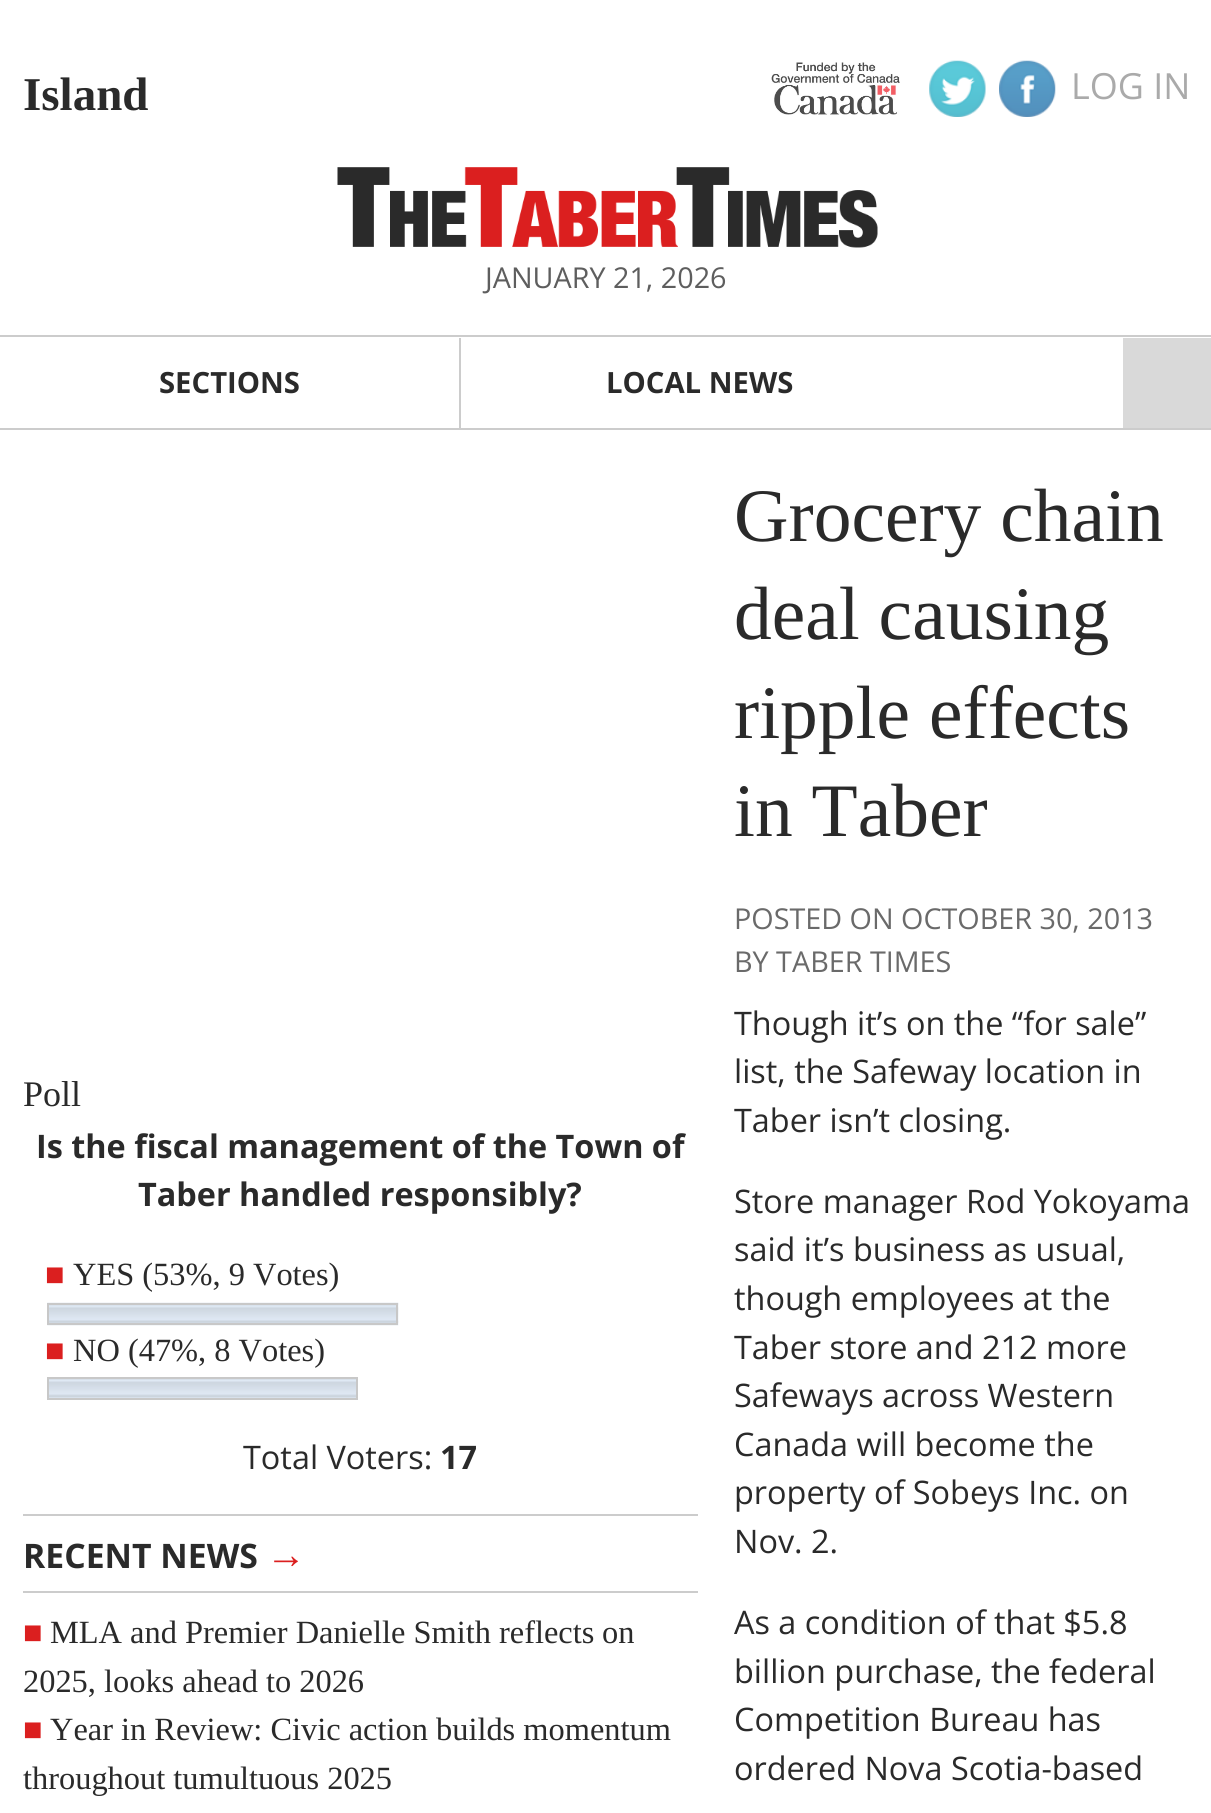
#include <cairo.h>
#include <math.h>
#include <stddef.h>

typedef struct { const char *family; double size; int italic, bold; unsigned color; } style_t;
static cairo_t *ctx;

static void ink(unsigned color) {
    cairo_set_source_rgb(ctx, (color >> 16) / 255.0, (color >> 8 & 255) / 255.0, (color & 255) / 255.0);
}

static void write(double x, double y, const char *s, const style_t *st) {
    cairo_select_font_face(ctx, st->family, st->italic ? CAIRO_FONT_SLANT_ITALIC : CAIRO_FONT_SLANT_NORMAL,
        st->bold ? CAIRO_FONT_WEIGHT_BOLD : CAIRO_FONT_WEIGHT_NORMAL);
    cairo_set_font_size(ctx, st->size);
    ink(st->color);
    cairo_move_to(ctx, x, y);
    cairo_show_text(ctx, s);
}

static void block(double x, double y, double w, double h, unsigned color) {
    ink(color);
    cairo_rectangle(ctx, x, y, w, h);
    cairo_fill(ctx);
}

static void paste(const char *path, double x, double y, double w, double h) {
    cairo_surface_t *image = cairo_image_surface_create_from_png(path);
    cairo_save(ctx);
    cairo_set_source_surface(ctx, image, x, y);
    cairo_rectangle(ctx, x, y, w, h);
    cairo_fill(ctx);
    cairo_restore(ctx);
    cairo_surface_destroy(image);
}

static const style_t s1 = {"Liberation Serif", 47, 0, 1, 0x2a2a2a};
static const style_t s2 = {"Open Sans", 36, 0, 0, 0xaaaaaa};
static const style_t s3 = {"Open Sans", 28.75, 0, 0, 0x5e5e5e};
static const style_t s4 = {"Open Sans", 29.25, 0, 1, 0x2a2a2a};
static const style_t s5 = {"Liberation Serif", 36, 0, 0, 0x2a2a2a};
static const style_t s6 = {"Open Sans", 32.4, 0, 1, 0x2a2a2a};
static const style_t s7 = {"Liberation Serif", 32.4, 0, 0, 0xdb1f1f};
static const style_t s8 = {"Liberation Serif", 32.4, 0, 0, 0x2a2a2a};
static const style_t s9 = {"Open Sans", 32.4, 0, 0, 0x2a2a2a};
static const style_t s10 = {"Open Sans", 33.75, 0, 1, 0x2a2a2a};
static const style_t s11 = {"Liberation Sans", 40, 0, 1, 0xdb1f1f};
static const style_t s12 = {"Liberation Serif", 75.5, 0, 0, 0x2a2a2a};
static const style_t s13 = {"Open Sans", 28.75, 0, 0, 0x6a6a6a};

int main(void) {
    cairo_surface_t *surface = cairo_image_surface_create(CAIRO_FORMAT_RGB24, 1211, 1813);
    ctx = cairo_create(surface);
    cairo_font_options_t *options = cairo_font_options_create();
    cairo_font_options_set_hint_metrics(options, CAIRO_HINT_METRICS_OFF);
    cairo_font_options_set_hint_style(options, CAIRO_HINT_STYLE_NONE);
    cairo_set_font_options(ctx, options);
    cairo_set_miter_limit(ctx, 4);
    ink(0xffffff);
    cairo_paint(ctx);
    write(23, 110, "Island", &s1);
    paste("pic1.png", 771, 62, 129, 53);
    paste("pic2.png", 929, 60, 57, 57);
    paste("pic3.png", 999, 60, 57, 57);
    write(1071, 99, "LOG IN", &s2);
    paste("pic4.png", 337, 167, 541, 81);
    write(485, 288, "JANUARY 21, 2026", &s3);
    block(0, 335, 1211, 2, 0xcccccc);
    block(0, 428, 1211, 2, 0xcccccc);
    block(459, 338, 2, 90, 0xcccccc);
    write(159, 393, "SECTIONS", &s4);
    write(606, 393, "LOCAL NEWS", &s4);
    block(1123, 338, 88, 90, 0xd9d9d9);
    write(23, 1106, "Poll", &s5);
    write(36, 1158, "Is the fiscal management of the Town of", &s6);
    write(138, 1206, "Taber handled responsibly?", &s6);
    write(45, 1285, "■", &s7);
    write(73, 1285, "YES (53%, 9 Votes)", &s8);
    paste("pic5.png", 47, 1302, 352, 24);
    cairo_rectangle(ctx, 48, 1304, 349, 20);
    ink(0xc8c8c8);
    cairo_stroke(ctx);
    write(45, 1361, "■", &s7);
    write(73, 1361, "NO (47%, 8 Votes)", &s8);
    paste("pic6.png", 49, 1379, 307, 19);
    cairo_rectangle(ctx, 48, 1378, 309, 21);
    ink(0xc8c8c8);
    cairo_stroke(ctx);
    write(243, 1469, "Total Voters:", &s9);
    write(440, 1469, "17", &s6);
    block(23, 1514, 675, 2, 0xcccccc);
    block(23, 1591, 675, 2, 0xcccccc);
    write(23, 1568, "RECENT NEWS", &s10);
    write(266, 1568, "→", &s11);
    write(23, 1643, "■", &s7);
    write(50, 1643, "MLA and Premier Danielle Smith reflects", &s8);
    write(602, 1643, "on", &s8);
    write(23, 1692, "2025, looks ahead to 2026", &s8);
    write(23, 1740, "■", &s7);
    write(50, 1740, "Year in Review: Civic action builds momentum", &s8);
    write(23, 1789, "throughout tumultuous 2025", &s8);
    write(734, 541, "Grocery chain", &s12);
    write(734, 639, "deal causing", &s12);
    write(734, 738, "ripple effects", &s12);
    write(734, 836, "in Taber", &s12);
    write(734, 929, "POSTED ON OCTOBER 30, 2013", &s13);
    write(734, 972, "BY TABER TIMES", &s13);
    write(734, 1035, "Though it’s on the “for sale”", &s9);
    write(734, 1083, "list, the Safeway location in", &s9);
    write(734, 1132, "Taber isn’t closing.", &s9);
    write(734, 1213, "Store manager Rod Yokoyama", &s9);
    write(734, 1261, "said it’s business as usual,", &s9);
    write(734, 1310, "though employees at the", &s9);
    write(734, 1359, "Taber store and 212 more", &s9);
    write(734, 1407, "Safeways across Western", &s9);
    write(734, 1456, "Canada will become the", &s9);
    write(734, 1504, "property of Sobeys Inc. on", &s9);
    write(734, 1553, "Nov. 2.", &s9);
    write(734, 1634, "As a condition of that $5.8", &s9);
    write(734, 1683, "billion purchase, the federal", &s9);
    write(734, 1731, "Competition Bureau has", &s9);
    write(734, 1780, "ordered Nova Scotia-based", &s9);
    cairo_surface_write_to_png(surface, "screenshot.png");
    cairo_font_options_destroy(options);
    cairo_destroy(ctx);
    cairo_surface_destroy(surface);
    return 0;
}
